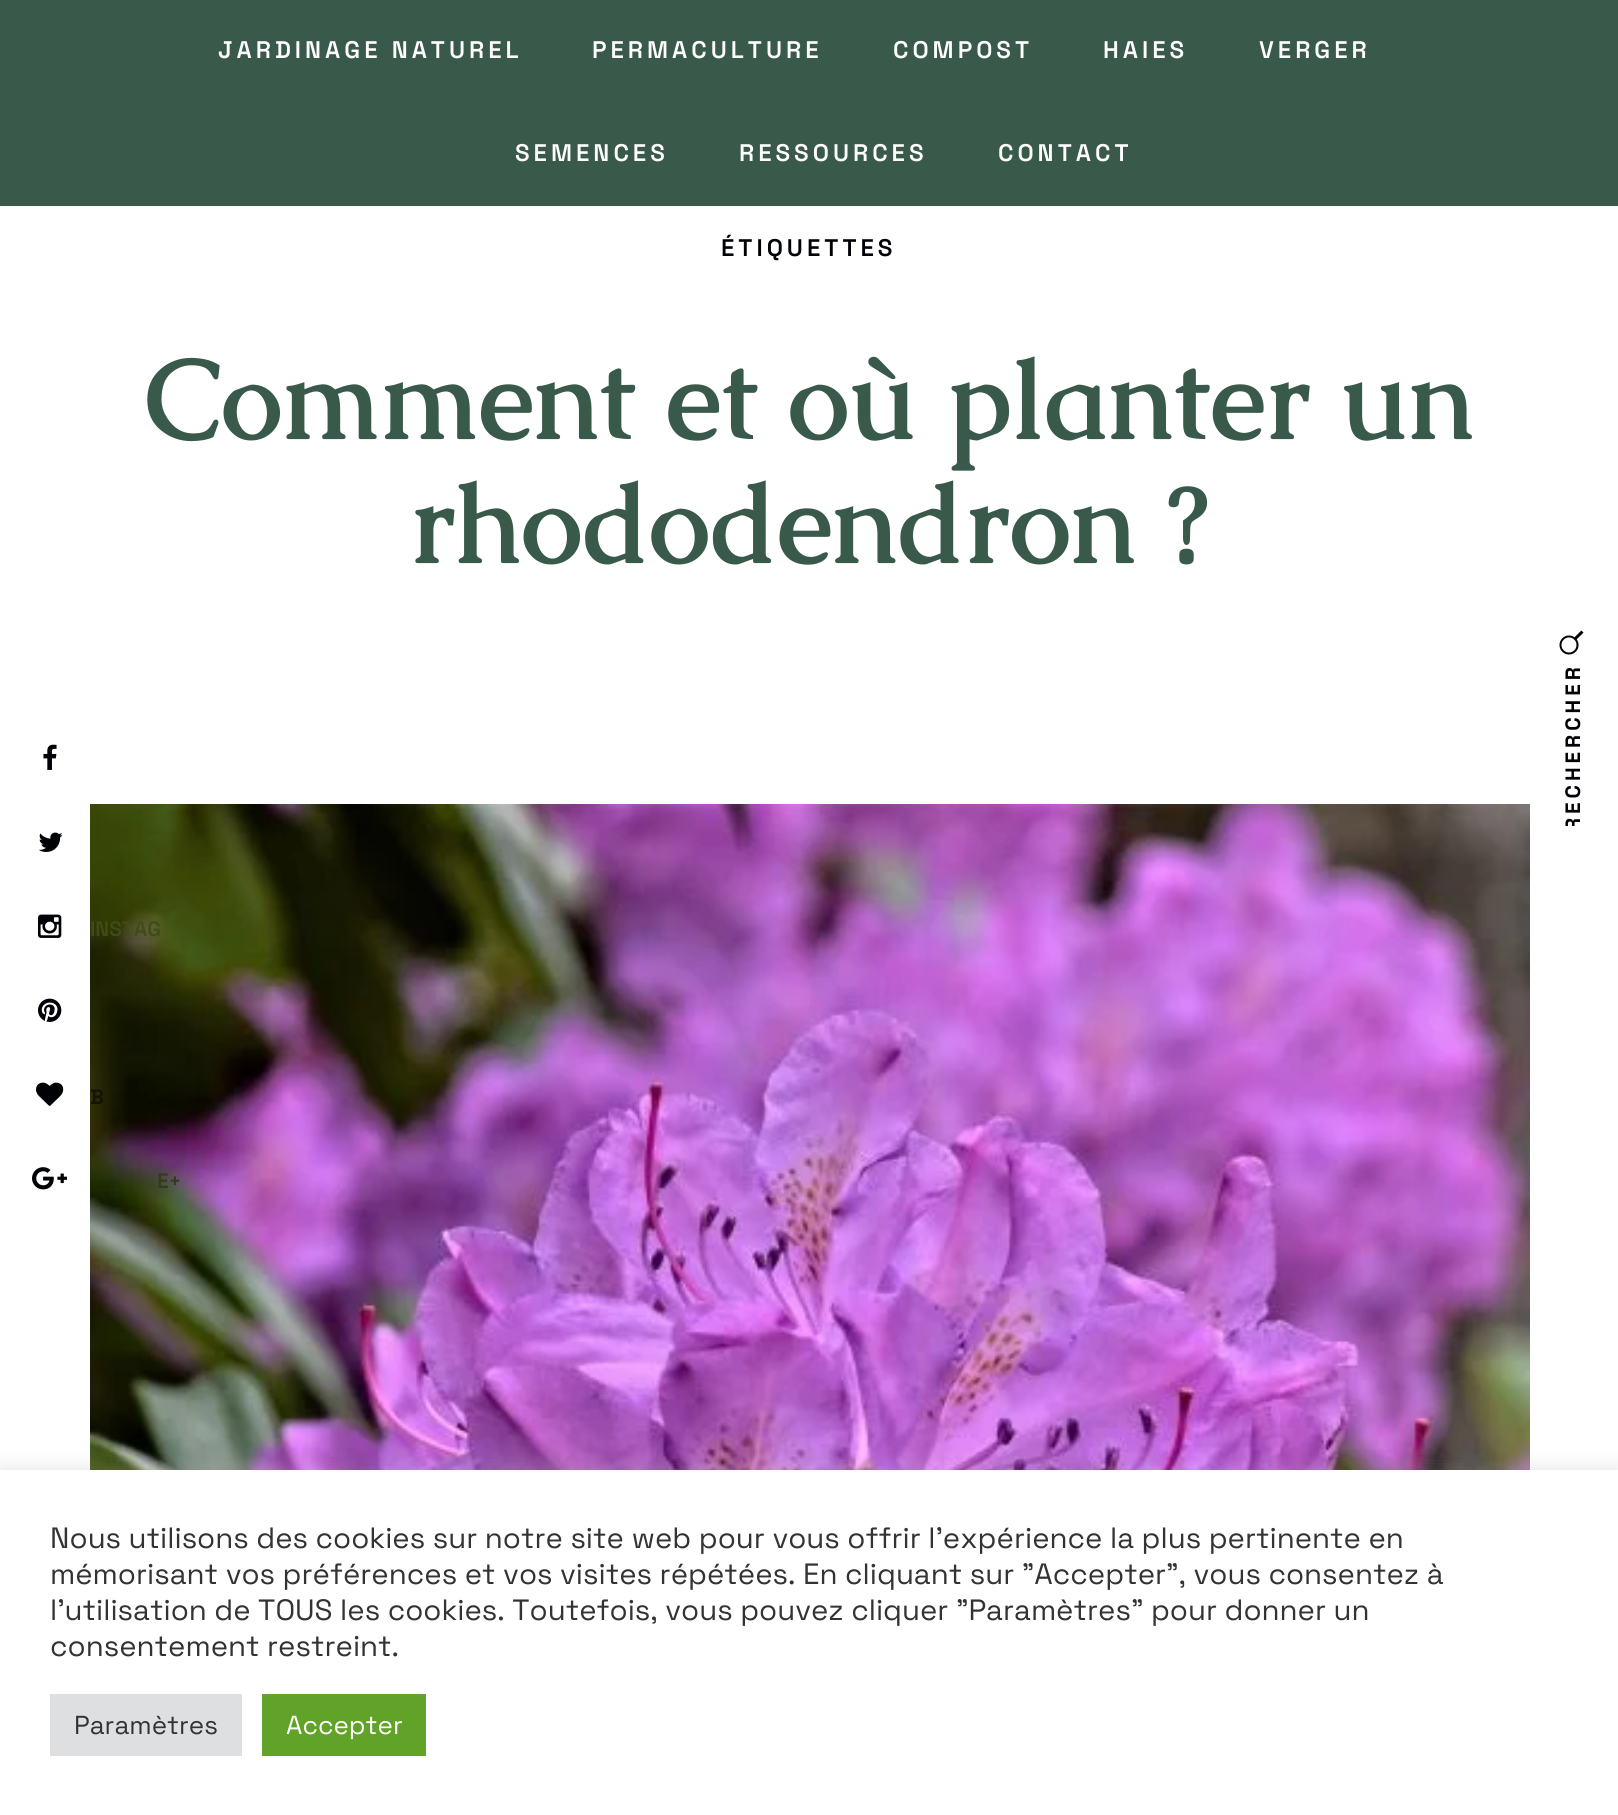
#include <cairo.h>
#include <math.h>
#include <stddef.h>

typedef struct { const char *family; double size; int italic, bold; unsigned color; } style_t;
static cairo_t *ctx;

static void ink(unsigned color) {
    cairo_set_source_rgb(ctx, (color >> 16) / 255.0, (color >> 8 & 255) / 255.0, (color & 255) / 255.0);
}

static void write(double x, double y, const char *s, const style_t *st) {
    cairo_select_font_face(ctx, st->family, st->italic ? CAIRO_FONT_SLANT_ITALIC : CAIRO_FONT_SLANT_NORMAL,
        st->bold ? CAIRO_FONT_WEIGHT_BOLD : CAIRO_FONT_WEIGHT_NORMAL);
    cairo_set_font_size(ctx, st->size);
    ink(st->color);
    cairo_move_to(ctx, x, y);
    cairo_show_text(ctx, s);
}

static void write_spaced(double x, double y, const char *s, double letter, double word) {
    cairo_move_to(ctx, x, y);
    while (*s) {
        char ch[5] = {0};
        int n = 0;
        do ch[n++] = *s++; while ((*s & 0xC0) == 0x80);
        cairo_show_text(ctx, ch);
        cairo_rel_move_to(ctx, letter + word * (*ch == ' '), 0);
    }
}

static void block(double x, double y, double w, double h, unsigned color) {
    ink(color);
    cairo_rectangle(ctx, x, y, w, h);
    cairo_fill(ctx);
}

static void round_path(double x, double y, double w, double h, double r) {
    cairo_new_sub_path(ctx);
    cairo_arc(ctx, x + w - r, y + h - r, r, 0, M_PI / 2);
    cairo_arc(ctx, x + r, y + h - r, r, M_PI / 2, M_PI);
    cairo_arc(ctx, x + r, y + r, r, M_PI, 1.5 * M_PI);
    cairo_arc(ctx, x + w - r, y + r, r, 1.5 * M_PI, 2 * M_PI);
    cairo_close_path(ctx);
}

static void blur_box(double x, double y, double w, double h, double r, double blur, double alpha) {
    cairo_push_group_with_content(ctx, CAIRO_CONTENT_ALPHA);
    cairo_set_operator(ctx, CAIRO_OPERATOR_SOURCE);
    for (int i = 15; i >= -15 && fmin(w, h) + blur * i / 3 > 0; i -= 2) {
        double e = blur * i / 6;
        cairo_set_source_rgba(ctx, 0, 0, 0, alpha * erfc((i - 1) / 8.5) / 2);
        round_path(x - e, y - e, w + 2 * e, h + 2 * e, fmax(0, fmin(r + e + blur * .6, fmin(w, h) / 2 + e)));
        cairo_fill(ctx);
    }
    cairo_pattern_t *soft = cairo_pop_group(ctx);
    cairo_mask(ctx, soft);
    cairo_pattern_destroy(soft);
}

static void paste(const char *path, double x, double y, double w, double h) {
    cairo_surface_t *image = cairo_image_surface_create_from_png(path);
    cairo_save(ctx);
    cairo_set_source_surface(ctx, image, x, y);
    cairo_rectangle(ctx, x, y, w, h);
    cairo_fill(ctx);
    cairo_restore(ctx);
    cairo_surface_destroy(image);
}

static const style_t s1 = {"Caudex", 112, 0, 1, 0x395a4a};
static const style_t s2 = {"Space Grotesk SemiBold", 20.75, 0, 0, 0x404b16};
static const style_t s3 = {"Space Grotesk SemiBold", 20.75, 0, 0, 0x121302};
static const style_t s4 = {"Space Grotesk SemiBold", 20.75, 0, 0, 0x333b1e};
static const style_t s5 = {"Space Grotesk", 29.35, 0, 0, 0x333333};
static const style_t s6 = {"Space Grotesk", 26, 0, 0, 0x333333};
static const style_t s7 = {"Space Grotesk", 26, 0, 0, 0xffffff};

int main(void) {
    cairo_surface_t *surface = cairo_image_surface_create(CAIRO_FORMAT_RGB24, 1618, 1815);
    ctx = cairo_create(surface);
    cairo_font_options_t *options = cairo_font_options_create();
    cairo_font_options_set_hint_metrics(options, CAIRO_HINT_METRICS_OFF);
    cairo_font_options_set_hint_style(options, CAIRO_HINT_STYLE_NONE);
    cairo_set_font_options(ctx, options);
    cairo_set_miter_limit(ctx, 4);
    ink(0xffffff);
    cairo_paint(ctx);
    block(0, 0, 1618, 206, 0x395a4a);
    cairo_select_font_face(ctx, "Space Grotesk SemiBold", CAIRO_FONT_SLANT_NORMAL, CAIRO_FONT_WEIGHT_NORMAL);
    cairo_set_font_size(ctx, 24);
    ink(0xffffff);
    write_spaced(218, 58, "JARDINAGE NATUREL", 4, 0);
    write_spaced(592, 58, "PERMACULTURE", 4, 0);
    write_spaced(893, 58, "COMPOST", 4, 0);
    write_spaced(1103, 58, "HAIES", 4, 0);
    write_spaced(1259, 58, "VERGER", 4, 0);
    write_spaced(515, 161, "SEMENCES", 4, 0);
    write_spaced(739, 161, "RESSOURCES", 4, 0);
    write_spaced(998, 161, "CONTACT", 4, 0);
    ink(0x000206);
    write_spaced(721, 256, "ÉTIQUETTES", 4, 0);
    write(145, 438, "Comment et où planter un", &s1);
    write(410, 562, "rhododendron ?", &s1);
    paste("pic1.png", 1559, 630, 25, 25);
    cairo_save(ctx);
    cairo_rectangle(ctx, 1390, 626, 208, 200);
    cairo_clip(ctx);
    cairo_select_font_face(ctx, "Space Grotesk", CAIRO_FONT_SLANT_NORMAL, CAIRO_FONT_WEIGHT_BOLD);
    cairo_set_font_size(ctx, 20.75);
    ink(0x000206);
    cairo_save(ctx);
    cairo_translate(ctx, 1580, 831);
    cairo_rotate(ctx, -90 * M_PI / 180);
    write_spaced(0, 0, "RECHERCHER", 4, 0);
    cairo_restore(ctx);
    cairo_restore(ctx);
    paste("pic2.png", 90, 804, 1440, 666);
    paste("pic3.png", 43, 744, 14, 26);
    paste("pic4.png", 38, 832, 25, 20);
    paste("pic5.png", 38, 914, 24, 24);
    write(90, 936, "INSTAG", &s2);
    paste("pic6.png", 38, 998, 24, 24);
    paste("pic7.png", 36, 1082, 28, 24);
    write(90, 1104, "B", &s3);
    paste("pic8.png", 32, 1167, 35, 23);
    write(157, 1188, "E+", &s4);
    ink(0xacabab);
    blur_box(0, 1468, 1618, 346, 0, 10, 0.3);
    block(0, 1470, 1618, 345, 0xffffff);
    write(50, 1548, "Nous utilisons des cookies sur notre site web pour vous offrir l'expérience la plus pertinente en", &s5);
    write(50, 1584, "mémorisant vos préférences et vos visites répétées. En cliquant sur \"Accepter\", vous consentez à", &s5);
    write(50, 1620, "l'utilisation de TOUS les cookies. Toutefois, vous pouvez cliquer \"Paramètres\" pour donner un", &s5);
    write(50, 1656, "consentement restreint.", &s5);
    block(50, 1694, 192, 62, 0xdedfe0);
    write(74, 1734, "Paramètres", &s6);
    block(262, 1694, 164, 62, 0x61a229);
    write(286, 1734, "Accepter", &s7);
    cairo_surface_write_to_png(surface, "screenshot.png");
    cairo_font_options_destroy(options);
    cairo_destroy(ctx);
    cairo_surface_destroy(surface);
    return 0;
}
